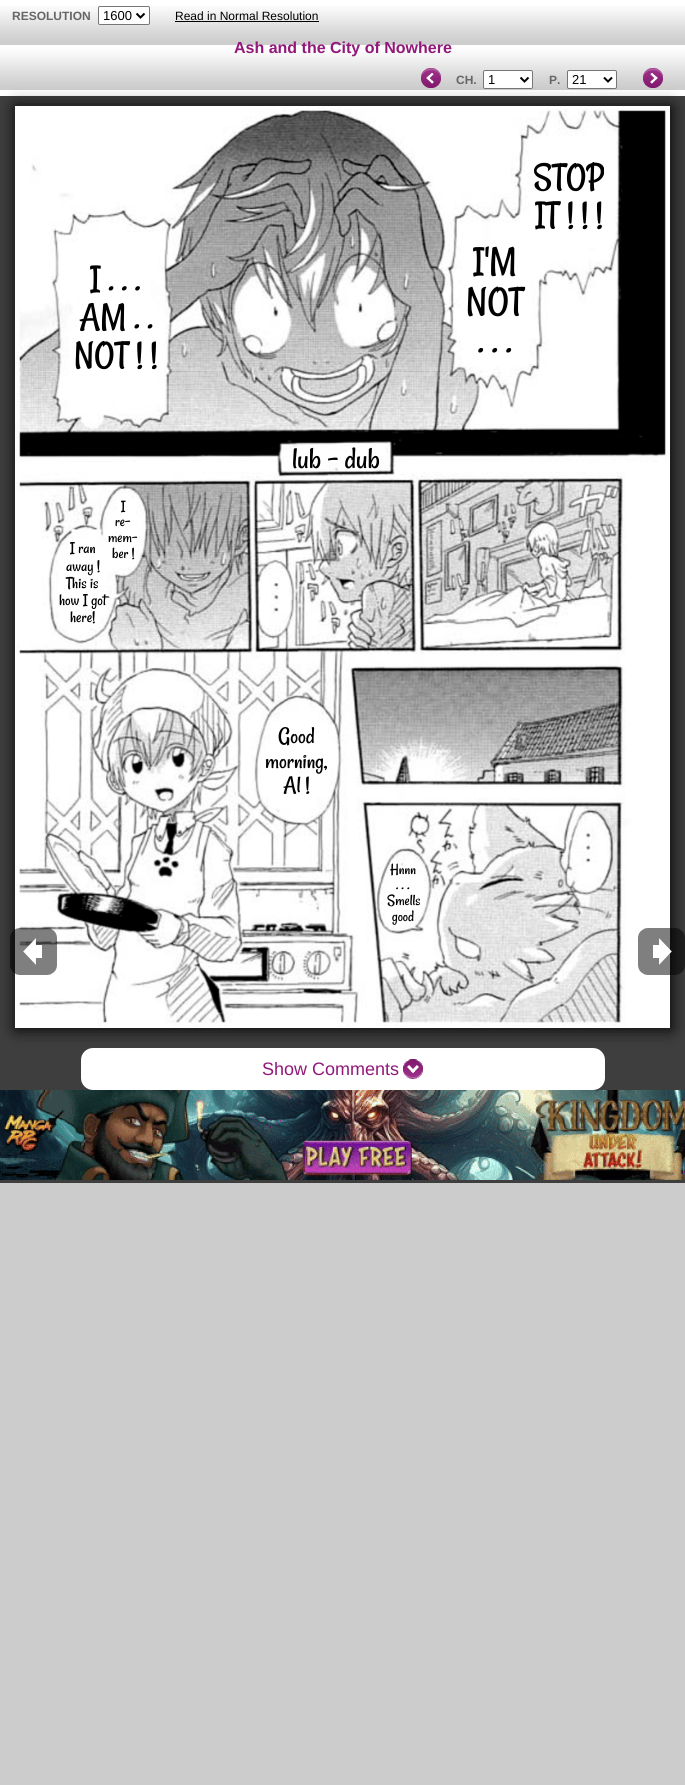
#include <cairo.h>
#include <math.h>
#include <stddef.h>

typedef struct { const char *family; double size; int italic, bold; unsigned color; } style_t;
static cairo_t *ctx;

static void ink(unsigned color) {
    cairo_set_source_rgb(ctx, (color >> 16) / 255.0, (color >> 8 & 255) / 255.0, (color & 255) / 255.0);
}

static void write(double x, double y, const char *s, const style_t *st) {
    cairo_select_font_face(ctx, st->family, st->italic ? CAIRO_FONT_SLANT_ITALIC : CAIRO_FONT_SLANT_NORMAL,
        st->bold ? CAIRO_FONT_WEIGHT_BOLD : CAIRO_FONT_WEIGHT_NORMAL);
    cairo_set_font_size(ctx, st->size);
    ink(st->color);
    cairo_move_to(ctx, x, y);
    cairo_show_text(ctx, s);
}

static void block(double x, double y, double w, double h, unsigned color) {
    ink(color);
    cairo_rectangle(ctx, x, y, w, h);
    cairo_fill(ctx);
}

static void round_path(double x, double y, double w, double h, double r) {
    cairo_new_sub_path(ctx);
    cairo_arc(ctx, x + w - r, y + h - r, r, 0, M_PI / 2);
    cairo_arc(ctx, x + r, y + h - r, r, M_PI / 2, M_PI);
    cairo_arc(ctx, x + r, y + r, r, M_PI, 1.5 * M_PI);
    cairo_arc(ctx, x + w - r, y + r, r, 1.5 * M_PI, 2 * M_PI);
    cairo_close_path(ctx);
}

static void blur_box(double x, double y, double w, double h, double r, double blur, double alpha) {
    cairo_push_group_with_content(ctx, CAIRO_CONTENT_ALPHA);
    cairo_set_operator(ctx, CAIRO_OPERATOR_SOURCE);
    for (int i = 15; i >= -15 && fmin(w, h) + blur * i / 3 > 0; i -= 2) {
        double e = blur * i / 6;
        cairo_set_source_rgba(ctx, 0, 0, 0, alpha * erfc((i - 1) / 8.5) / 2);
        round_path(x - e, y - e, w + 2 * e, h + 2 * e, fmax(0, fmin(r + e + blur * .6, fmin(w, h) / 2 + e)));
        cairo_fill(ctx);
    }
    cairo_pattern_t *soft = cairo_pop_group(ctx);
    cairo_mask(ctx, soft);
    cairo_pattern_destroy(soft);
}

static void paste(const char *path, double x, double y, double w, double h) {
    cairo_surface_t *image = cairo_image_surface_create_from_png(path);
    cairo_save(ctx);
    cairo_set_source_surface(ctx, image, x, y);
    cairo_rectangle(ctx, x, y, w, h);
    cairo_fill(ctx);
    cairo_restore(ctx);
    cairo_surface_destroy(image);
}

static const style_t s1 = {"Liberation Sans", 12, 0, 1, 0x666666};
static const style_t s2 = {"Liberation Sans", 13, 0, 0, 0x000000};
static const style_t s3 = {"Liberation Sans", 12, 0, 0, 0x000000};
static const style_t s4 = {"Liberation Sans", 16, 0, 1, 0x921879};
static const style_t s5 = {"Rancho", 38, 0, 0, 0x000000};
static const style_t s6 = {"Rancho", 40, 0, 0, 0x000000};
static const style_t s7 = {"Rancho", 31, 0, 0, 0x000000};
static const style_t s8 = {"Rancho", 16, 0, 0, 0x000000};
static const style_t s9 = {"Rancho", 17, 0, 0, 0x000000};
static const style_t s10 = {"Rancho", 24, 0, 0, 0x000000};
static const style_t s11 = {"Liberation Sans", 18, 0, 0, 0x921879};

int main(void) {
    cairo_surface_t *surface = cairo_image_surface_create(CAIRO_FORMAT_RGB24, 685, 1785);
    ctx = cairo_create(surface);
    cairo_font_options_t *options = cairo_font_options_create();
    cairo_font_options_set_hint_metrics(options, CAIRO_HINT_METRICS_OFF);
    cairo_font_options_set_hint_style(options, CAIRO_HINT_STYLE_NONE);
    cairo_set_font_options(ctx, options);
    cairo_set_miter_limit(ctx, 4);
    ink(0xcccccc);
    cairo_paint(ctx);
    block(0, 0, 685, 96, 0xffffff);
    paste("pic1.png", 0, 6, 685, 84);
    write(12, 20, "RESOLUTION", &s1);
    ink(0xffffff);
    round_path(98.5, 6.5, 51, 18, 1.5);
    cairo_fill_preserve(ctx);
    ink(0x767676);
    cairo_set_line_width(ctx, 1);
    cairo_stroke(ctx);
    cairo_new_path(ctx);
    cairo_move_to(ctx, 136.5, 13.5);
    cairo_line_to(ctx, 140.5, 17.5);
    cairo_line_to(ctx, 144.5, 13.5);
    ink(0x000000);
    cairo_set_line_width(ctx, 2);
    cairo_stroke(ctx);
    write(103, 20, "1600", &s2);
    write(175, 20, "Read in Normal Resolution", &s3);
    block(175, 21, 144, 1, 0x000000);
    write(234, 53, "Ash and the City of Nowhere", &s4);
    paste("pic2.png", 421, 68, 20, 20);
    write(456, 84, "CH.", &s1);
    ink(0xffffff);
    round_path(483.5, 70.5, 49, 18, 1.5);
    cairo_fill_preserve(ctx);
    ink(0x767676);
    cairo_set_line_width(ctx, 1);
    cairo_stroke(ctx);
    cairo_new_path(ctx);
    cairo_move_to(ctx, 520.5, 77.5);
    cairo_line_to(ctx, 524.5, 81.5);
    cairo_line_to(ctx, 528.5, 77.5);
    ink(0x000000);
    cairo_set_line_width(ctx, 2);
    cairo_stroke(ctx);
    write(488, 84, "1", &s2);
    write(549, 84, "P.", &s1);
    ink(0xffffff);
    round_path(567.5, 70.5, 49, 18, 1.5);
    cairo_fill_preserve(ctx);
    ink(0x767676);
    cairo_set_line_width(ctx, 1);
    cairo_stroke(ctx);
    cairo_new_path(ctx);
    cairo_move_to(ctx, 604, 77.5);
    cairo_line_to(ctx, 608, 81.5);
    cairo_line_to(ctx, 612, 77.5);
    ink(0x000000);
    cairo_set_line_width(ctx, 2);
    cairo_stroke(ctx);
    write(572, 84, "21", &s2);
    paste("pic3.png", 643, 68, 20, 20);
    block(0, 96, 685, 1087, 0x3e3e3e);
    ink(0xffffff);
    round_path(81, 1048, 524, 42, 12);
    cairo_fill(ctx);
    ink(0x000000);
    blur_box(16, 107, 655, 922, 0, 8, 1);
    paste("pic4.png", 15, 106, 655, 922);
    write(533, 188, "STOP", &s5);
    write(535, 226, "IT ! ! !", &s5);
    write(90, 290, "I . . .", &s5);
    write(79, 328, "AM . .", &s5);
    write(74, 366, "NOT ! !", &s5);
    write(473, 273, "I'M", &s6);
    write(466, 313, "NOT", &s6);
    write(478, 352, ". . .", &s6);
    write(292, 468, "lub - dub", &s7);
    write(121, 511, "I", &s8);
    write(115, 526, "re-", &s8);
    write(108, 542, "mem-", &s8);
    write(112, 558, "ber !", &s8);
    write(70, 553, "I ran", &s9);
    write(66, 571, "away !", &s9);
    write(66, 588, "This is", &s9);
    write(59, 605, "how I got", &s9);
    write(70, 622, "here!", &s9);
    write(278, 743, "Good", &s10);
    write(265, 768, "morning,", &s10);
    write(283, 792, "Al !", &s10);
    write(390, 874, "Hnnn", &s8);
    write(396, 889, ". . .", &s8);
    write(387, 905, "Smells", &s8);
    write(392, 921, "good", &s8);
    paste("pic5.png", 10, 928, 47, 47);
    paste("pic6.png", 638, 928, 47, 47);
    paste("pic7.png", 403, 1059, 20, 20);
    write(262, 1075, "Show Comments", &s11);
    paste("pic8.png", 0, 1090, 685, 90);
    cairo_surface_write_to_png(surface, "screenshot.png");
    cairo_font_options_destroy(options);
    cairo_destroy(ctx);
    cairo_surface_destroy(surface);
    return 0;
}
